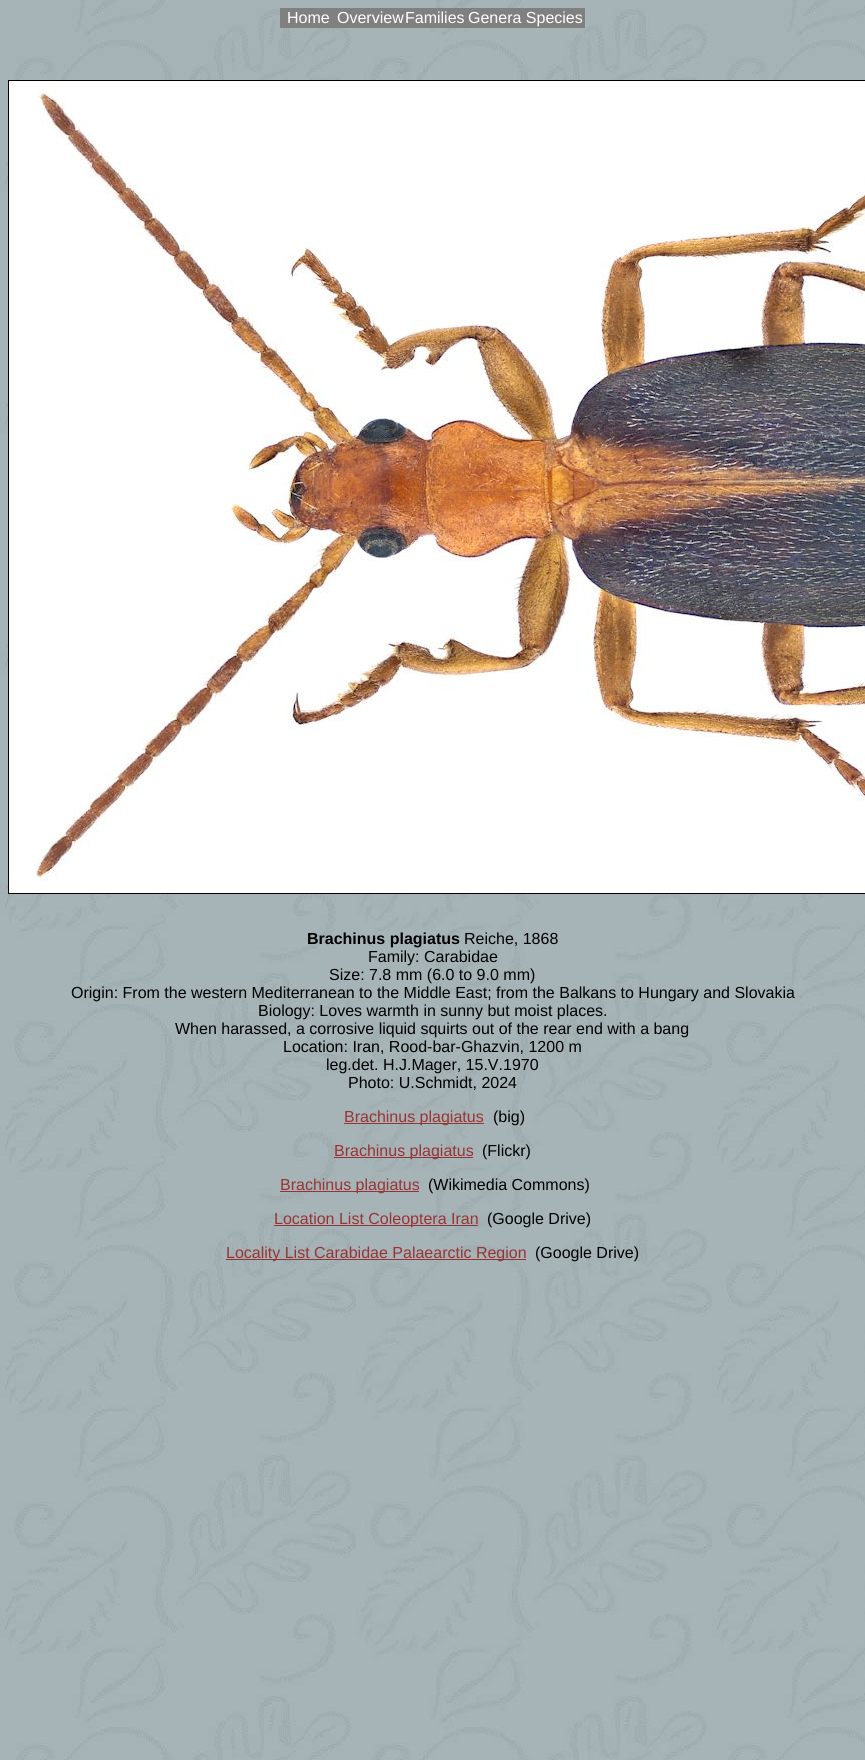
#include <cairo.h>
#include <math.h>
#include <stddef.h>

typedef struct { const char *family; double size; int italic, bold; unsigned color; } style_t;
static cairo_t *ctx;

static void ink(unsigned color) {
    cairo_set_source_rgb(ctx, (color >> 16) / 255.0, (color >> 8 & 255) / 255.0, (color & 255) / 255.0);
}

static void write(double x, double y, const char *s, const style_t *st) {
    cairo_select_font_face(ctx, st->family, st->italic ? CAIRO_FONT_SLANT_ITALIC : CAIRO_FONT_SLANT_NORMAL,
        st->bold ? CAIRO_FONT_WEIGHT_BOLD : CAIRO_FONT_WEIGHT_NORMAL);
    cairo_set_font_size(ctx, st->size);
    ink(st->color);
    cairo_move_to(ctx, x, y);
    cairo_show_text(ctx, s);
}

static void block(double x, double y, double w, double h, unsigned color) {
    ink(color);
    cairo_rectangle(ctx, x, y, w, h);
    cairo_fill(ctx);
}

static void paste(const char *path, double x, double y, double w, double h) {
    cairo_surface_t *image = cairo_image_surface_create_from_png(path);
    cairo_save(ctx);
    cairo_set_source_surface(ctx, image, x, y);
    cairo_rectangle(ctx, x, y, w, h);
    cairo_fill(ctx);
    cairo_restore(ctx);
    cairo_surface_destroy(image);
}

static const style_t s1 = {"Liberation Sans", 16, 0, 0, 0xffffff};
static const style_t s2 = {"Liberation Sans", 16, 0, 1, 0x000000};
static const style_t s3 = {"Liberation Sans", 16, 0, 0, 0x000000};
static const style_t s4 = {"Liberation Sans", 16, 0, 0, 0x993333};

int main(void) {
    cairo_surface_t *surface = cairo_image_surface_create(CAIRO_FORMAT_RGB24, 865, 1760);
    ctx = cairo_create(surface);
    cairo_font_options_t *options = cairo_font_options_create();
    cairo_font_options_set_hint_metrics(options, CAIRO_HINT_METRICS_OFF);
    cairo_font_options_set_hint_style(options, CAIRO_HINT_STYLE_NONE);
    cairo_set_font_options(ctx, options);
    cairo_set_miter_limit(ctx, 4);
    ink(0xffffff);
    cairo_paint(ctx);
    paste("pic1.png", 0, 0, 865, 1760);
    block(280, 8, 305, 20, 0x808080);
    write(287, 23, "Home", &s1);
    write(337, 23, "Overview", &s1);
    write(405, 23, "Families", &s1);
    write(468, 23, "Genera Species", &s1);
    cairo_rectangle(ctx, 8.5, 80.5, 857, 813);
    ink(0x000000);
    cairo_set_line_width(ctx, 1);
    cairo_stroke(ctx);
    paste("pic2.png", 9, 81, 856, 812);
    write(307, 944, "Brachinus plagiatus", &s2);
    write(464, 944, "Reiche, 1868", &s3);
    write(368, 962, "Family: Carabidae", &s3);
    write(329, 980, "Size: 7.8 mm (6.0 to 9.0 mm)", &s3);
    write(71, 998, "Origin: From the western Mediterranean to the Middle East; from the Balkans to Hungary and Slovakia", &s3);
    write(258, 1016, "Biology: Loves warmth in sunny but moist places.", &s3);
    write(175, 1034, "When harassed, a corrosive liquid squirts out of the rear end with a bang", &s3);
    write(283, 1052, "Location: Iran, Rood-bar-Ghazvin, 1200 m", &s3);
    write(326, 1070, "leg.det. H.J.Mager, 15.V.1970", &s3);
    write(348, 1088, "Photo: U.Schmidt, 2024", &s3);
    block(344, 1123, 140, 1, 0x993333);
    write(344, 1122, "Brachinus plagiatus", &s4);
    write(493, 1122, "(big)", &s3);
    block(334, 1157, 139, 1, 0x993333);
    write(334, 1156, "Brachinus plagiatus", &s4);
    write(482, 1156, "(Flickr)", &s3);
    block(280, 1191, 139, 1, 0x993333);
    write(280, 1190, "Brachinus plagiatus", &s4);
    write(428, 1190, "(Wikimedia Commons)", &s3);
    block(274, 1225, 204, 1, 0x993333);
    write(274, 1224, "Location List Coleoptera Iran", &s4);
    write(487, 1224, "(Google Drive)", &s3);
    block(226, 1259, 300, 1, 0x993333);
    write(226, 1258, "Locality List Carabidae Palaearctic Region", &s4);
    write(535, 1258, "(Google Drive)", &s3);
    cairo_surface_write_to_png(surface, "screenshot.png");
    cairo_font_options_destroy(options);
    cairo_destroy(ctx);
    cairo_surface_destroy(surface);
    return 0;
}
